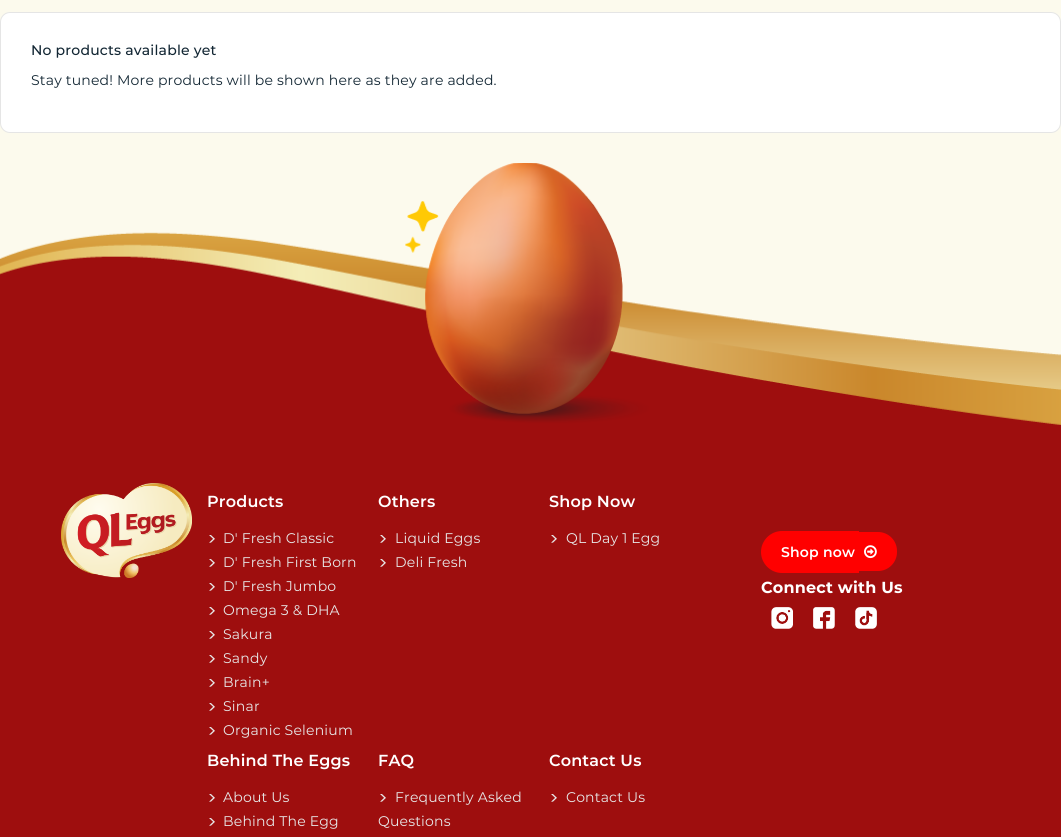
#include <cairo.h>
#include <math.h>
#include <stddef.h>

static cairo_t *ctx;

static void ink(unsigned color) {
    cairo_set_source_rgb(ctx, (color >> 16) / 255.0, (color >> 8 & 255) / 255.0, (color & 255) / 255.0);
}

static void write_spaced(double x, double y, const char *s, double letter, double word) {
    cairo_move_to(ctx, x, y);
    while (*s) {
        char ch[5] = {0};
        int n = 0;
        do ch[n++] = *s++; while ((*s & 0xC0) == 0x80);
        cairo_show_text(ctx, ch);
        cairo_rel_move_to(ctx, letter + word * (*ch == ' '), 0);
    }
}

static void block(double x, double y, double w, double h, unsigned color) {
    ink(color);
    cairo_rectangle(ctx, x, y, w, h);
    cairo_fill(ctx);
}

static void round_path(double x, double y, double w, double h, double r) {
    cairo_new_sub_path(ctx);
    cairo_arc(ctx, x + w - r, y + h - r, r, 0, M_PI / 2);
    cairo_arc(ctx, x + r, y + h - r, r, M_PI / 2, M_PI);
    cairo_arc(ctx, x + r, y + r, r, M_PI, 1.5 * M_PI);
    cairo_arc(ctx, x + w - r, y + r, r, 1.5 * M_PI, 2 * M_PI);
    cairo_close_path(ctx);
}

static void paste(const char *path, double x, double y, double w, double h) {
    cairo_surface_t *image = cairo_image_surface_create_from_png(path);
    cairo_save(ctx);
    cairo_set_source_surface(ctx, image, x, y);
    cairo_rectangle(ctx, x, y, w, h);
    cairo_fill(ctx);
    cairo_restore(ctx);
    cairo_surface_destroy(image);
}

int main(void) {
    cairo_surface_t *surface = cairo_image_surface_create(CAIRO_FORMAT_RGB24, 1061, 837);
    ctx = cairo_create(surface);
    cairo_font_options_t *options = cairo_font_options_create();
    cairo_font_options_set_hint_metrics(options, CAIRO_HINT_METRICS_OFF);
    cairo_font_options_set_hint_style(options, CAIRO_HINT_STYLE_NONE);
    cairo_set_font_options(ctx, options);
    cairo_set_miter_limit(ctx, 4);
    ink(0xfcfaed);
    cairo_paint(ctx);
    ink(0xffffff);
    round_path(0.5, 12.5, 1060, 120, 9.5);
    cairo_fill_preserve(ctx);
    ink(0xe5e5e5);
    cairo_set_line_width(ctx, 1);
    cairo_stroke(ctx);
    cairo_select_font_face(ctx, "Montserrat Medium", CAIRO_FONT_SLANT_NORMAL, CAIRO_FONT_WEIGHT_NORMAL);
    cairo_set_font_size(ctx, 14);
    ink(0x122633);
    write_spaced(31, 55, "No products available yet", 0.2, 0);
    cairo_select_font_face(ctx, "Montserrat", CAIRO_FONT_SLANT_NORMAL, CAIRO_FONT_WEIGHT_NORMAL);
    write_spaced(31, 85, "Stay tuned! More products will be shown here as they are added.", 0.2, 0);
    paste("pic1.png", 0, 163, 1061, 674);
    paste("pic2.png", 61, 483, 131, 95);
    cairo_select_font_face(ctx, "Montserrat SemiBold", CAIRO_FONT_SLANT_NORMAL, CAIRO_FONT_WEIGHT_NORMAL);
    cairo_set_font_size(ctx, 16);
    ink(0xffffff);
    write_spaced(207, 507, "Products", 0.2, 0);
    paste("pic3.png", 209, 535, 6, 8);
    cairo_select_font_face(ctx, "Montserrat", CAIRO_FONT_SLANT_NORMAL, CAIRO_FONT_WEIGHT_NORMAL);
    cairo_set_font_size(ctx, 14);
    ink(0xe7e7e7);
    write_spaced(223, 543, "D' Fresh Classic", 0.2, 0);
    paste("pic3.png", 209, 559, 6, 8);
    write_spaced(223, 567, "D' Fresh First Born", 0.2, 0);
    paste("pic3.png", 209, 583, 6, 8);
    write_spaced(223, 591, "D' Fresh Jumbo", 0.2, 0);
    paste("pic3.png", 209, 607, 6, 8);
    write_spaced(223, 615, "Omega 3 & DHA", 0.2, 0);
    paste("pic3.png", 209, 631, 6, 8);
    write_spaced(223, 639, "Sakura", 0.2, 0);
    paste("pic3.png", 209, 655, 6, 8);
    write_spaced(223, 663, "Sandy", 0.2, 0);
    paste("pic3.png", 209, 679, 6, 8);
    write_spaced(223, 687, "Brain+", 0.2, 0);
    paste("pic3.png", 209, 703, 6, 8);
    write_spaced(223, 711, "Sinar", 0.2, 0);
    paste("pic3.png", 209, 727, 6, 8);
    write_spaced(223, 735, "Organic Selenium", 0.2, 0);
    cairo_select_font_face(ctx, "Montserrat SemiBold", CAIRO_FONT_SLANT_NORMAL, CAIRO_FONT_WEIGHT_NORMAL);
    cairo_set_font_size(ctx, 16);
    ink(0xffffff);
    write_spaced(378, 507, "Others", 0.2, 0);
    paste("pic3.png", 380, 535, 6, 8);
    cairo_select_font_face(ctx, "Montserrat", CAIRO_FONT_SLANT_NORMAL, CAIRO_FONT_WEIGHT_NORMAL);
    cairo_set_font_size(ctx, 14);
    ink(0xe7e7e7);
    write_spaced(395, 543, "Liquid Eggs", 0.2, 0);
    paste("pic3.png", 380, 559, 6, 8);
    write_spaced(395, 567, "Deli Fresh", 0.2, 0);
    cairo_select_font_face(ctx, "Montserrat SemiBold", CAIRO_FONT_SLANT_NORMAL, CAIRO_FONT_WEIGHT_NORMAL);
    cairo_set_font_size(ctx, 16);
    ink(0xffffff);
    write_spaced(549, 507, "Shop Now", 0.2, 0);
    paste("pic3.png", 551, 535, 6, 8);
    cairo_select_font_face(ctx, "Montserrat", CAIRO_FONT_SLANT_NORMAL, CAIRO_FONT_WEIGHT_NORMAL);
    cairo_set_font_size(ctx, 14);
    ink(0xe7e7e7);
    write_spaced(566, 543, "QL Day 1 Egg", 0.2, 0);
    cairo_select_font_face(ctx, "Montserrat SemiBold", CAIRO_FONT_SLANT_NORMAL, CAIRO_FONT_WEIGHT_NORMAL);
    cairo_set_font_size(ctx, 16);
    ink(0xffffff);
    write_spaced(207, 766, "Behind The Eggs", 0.2, 0);
    paste("pic3.png", 209, 794, 6, 8);
    cairo_select_font_face(ctx, "Montserrat", CAIRO_FONT_SLANT_NORMAL, CAIRO_FONT_WEIGHT_NORMAL);
    cairo_set_font_size(ctx, 14);
    ink(0xe7e7e7);
    write_spaced(223, 802, "About Us", 0.2, 0);
    paste("pic3.png", 209, 818, 6, 8);
    write_spaced(223, 826, "Behind The Egg", 0.2, 0);
    cairo_select_font_face(ctx, "Montserrat SemiBold", CAIRO_FONT_SLANT_NORMAL, CAIRO_FONT_WEIGHT_NORMAL);
    cairo_set_font_size(ctx, 16);
    ink(0xffffff);
    write_spaced(378, 766, "FAQ", 0.2, 0);
    paste("pic3.png", 380, 794, 6, 8);
    cairo_select_font_face(ctx, "Montserrat", CAIRO_FONT_SLANT_NORMAL, CAIRO_FONT_WEIGHT_NORMAL);
    cairo_set_font_size(ctx, 14);
    ink(0xe7e7e7);
    write_spaced(395, 802, "Frequently Asked", 0.2, 0);
    write_spaced(378, 826, "Questions", 0.2, 0);
    cairo_select_font_face(ctx, "Montserrat SemiBold", CAIRO_FONT_SLANT_NORMAL, CAIRO_FONT_WEIGHT_NORMAL);
    cairo_set_font_size(ctx, 16);
    ink(0xffffff);
    write_spaced(549, 766, "Contact Us", 0.2, 0);
    paste("pic3.png", 551, 794, 6, 8);
    cairo_select_font_face(ctx, "Montserrat", CAIRO_FONT_SLANT_NORMAL, CAIRO_FONT_WEIGHT_NORMAL);
    cairo_set_font_size(ctx, 14);
    ink(0xe7e7e7);
    write_spaced(566, 802, "Contact Us", 0.2, 0);
    ink(0xff0000);
    cairo_new_path(ctx);
    cairo_move_to(ctx, 782, 531);
    cairo_line_to(ctx, 855, 531);
    cairo_line_to(ctx, 855, 573);
    cairo_line_to(ctx, 782, 573);
    cairo_curve_to(ctx, 770.5, 573, 761, 563.5, 761, 552);
    cairo_curve_to(ctx, 761, 540.5, 770.5, 531, 782, 531);
    cairo_close_path(ctx);
    cairo_fill(ctx);
    block(855, 531, 4, 42, 0xff0000);
    cairo_new_path(ctx);
    cairo_move_to(ctx, 859, 532);
    cairo_line_to(ctx, 878, 532);
    cairo_curve_to(ctx, 888.5, 532, 897, 540.5, 897, 551);
    cairo_line_to(ctx, 897, 552);
    cairo_curve_to(ctx, 897, 562.5, 888.5, 571, 878, 571);
    cairo_line_to(ctx, 859, 571);
    cairo_close_path(ctx);
    cairo_fill(ctx);
    cairo_select_font_face(ctx, "Montserrat SemiBold", CAIRO_FONT_SLANT_NORMAL, CAIRO_FONT_WEIGHT_NORMAL);
    ink(0xffffff);
    write_spaced(781, 557, "Shop now", 0.2, 0);
    paste("pic4.png", 864, 545, 13, 14);
    cairo_select_font_face(ctx, "Montserrat", CAIRO_FONT_SLANT_NORMAL, CAIRO_FONT_WEIGHT_BOLD);
    cairo_set_font_size(ctx, 16);
    write_spaced(761, 593, "Connect with Us", 0.2, 0);
    paste("pic5.png", 771, 607, 22, 22);
    paste("pic6.png", 813, 607, 22, 22);
    paste("pic7.png", 855, 607, 22, 22);
    cairo_surface_write_to_png(surface, "screenshot.png");
    cairo_font_options_destroy(options);
    cairo_destroy(ctx);
    cairo_surface_destroy(surface);
    return 0;
}
